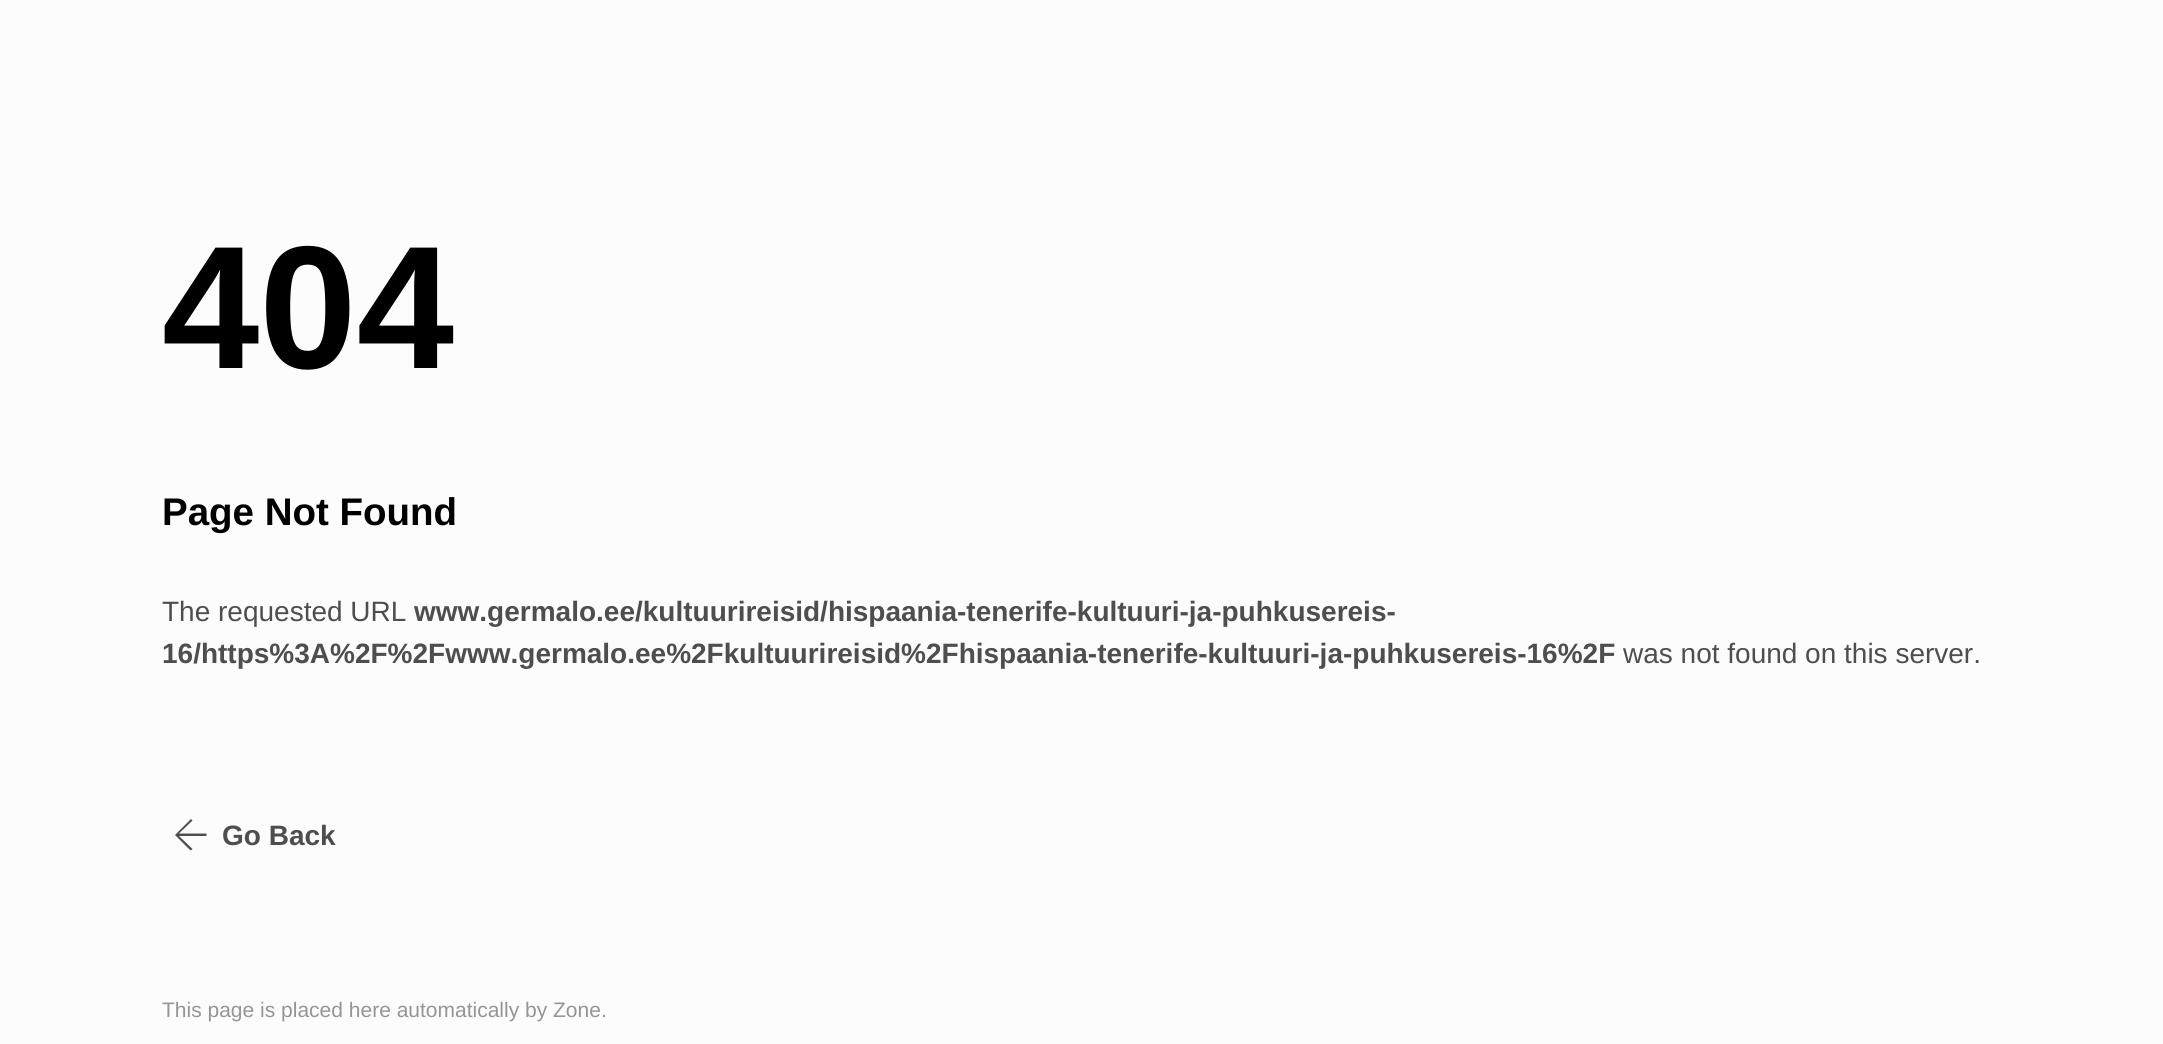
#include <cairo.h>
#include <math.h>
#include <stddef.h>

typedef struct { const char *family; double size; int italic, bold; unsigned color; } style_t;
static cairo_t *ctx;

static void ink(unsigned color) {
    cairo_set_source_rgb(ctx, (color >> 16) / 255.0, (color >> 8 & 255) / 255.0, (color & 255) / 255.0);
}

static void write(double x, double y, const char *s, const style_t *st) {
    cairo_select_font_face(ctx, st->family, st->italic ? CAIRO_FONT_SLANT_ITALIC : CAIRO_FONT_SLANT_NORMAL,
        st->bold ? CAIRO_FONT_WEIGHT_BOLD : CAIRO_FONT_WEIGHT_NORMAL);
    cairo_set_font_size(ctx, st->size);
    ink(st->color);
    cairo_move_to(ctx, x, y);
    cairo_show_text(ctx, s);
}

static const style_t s1 = {"Liberation Sans", 175, 0, 1, 0x000000};
static const style_t s2 = {"Liberation Sans", 38.5, 0, 1, 0x000000};
static const style_t s3 = {"Liberation Sans", 28, 0, 0, 0x4e4e4e};
static const style_t s4 = {"Liberation Sans", 28, 0, 1, 0x4e4e4e};
static const style_t s5 = {"Liberation Sans", 21, 0, 0, 0x959595};

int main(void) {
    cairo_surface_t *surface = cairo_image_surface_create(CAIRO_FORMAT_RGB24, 2163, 1044);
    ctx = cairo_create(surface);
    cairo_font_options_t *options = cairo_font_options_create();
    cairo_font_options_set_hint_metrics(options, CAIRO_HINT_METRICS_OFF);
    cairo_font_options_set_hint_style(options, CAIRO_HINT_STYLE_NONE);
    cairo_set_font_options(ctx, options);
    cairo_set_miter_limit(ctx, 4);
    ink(0xfcfcfc);
    cairo_paint(ctx);
    write(162, 368, "404", &s1);
    write(162, 525, "Page Not Found", &s2);
    write(162, 621, "The requested URL", &s3);
    write(414, 621, "www.germalo.ee/kultuurireisid/hispaania-tenerife-kultuuri-ja-puhkusereis-", &s4);
    write(162, 663, "16/https%3A%2F%2Fwww.germalo.ee%2Fkultuurireisid%2Fhispaania-tenerife-kultuuri-ja-puhkusereis-16%2F", &s4);
    write(1623, 663, "was not found on this server.", &s3);
    cairo_new_path(ctx);
    cairo_move_to(ctx, 206.5, 836);
    cairo_line_to(ctx, 179, 836);
    cairo_line_to(ctx, 192.5, 849);
    cairo_line_to(ctx, 190.5, 850.5);
    cairo_line_to(ctx, 175, 835);
    cairo_line_to(ctx, 191, 819);
    cairo_line_to(ctx, 192.5, 820.5);
    cairo_line_to(ctx, 179, 833.5);
    cairo_line_to(ctx, 206.5, 833.5);
    cairo_close_path(ctx);
    cairo_fill(ctx);
    write(222, 845, "Go Back", &s4);
    write(162, 1017, "This page is placed here automatically by Zone.", &s5);
    cairo_surface_write_to_png(surface, "screenshot.png");
    cairo_font_options_destroy(options);
    cairo_destroy(ctx);
    cairo_surface_destroy(surface);
    return 0;
}
